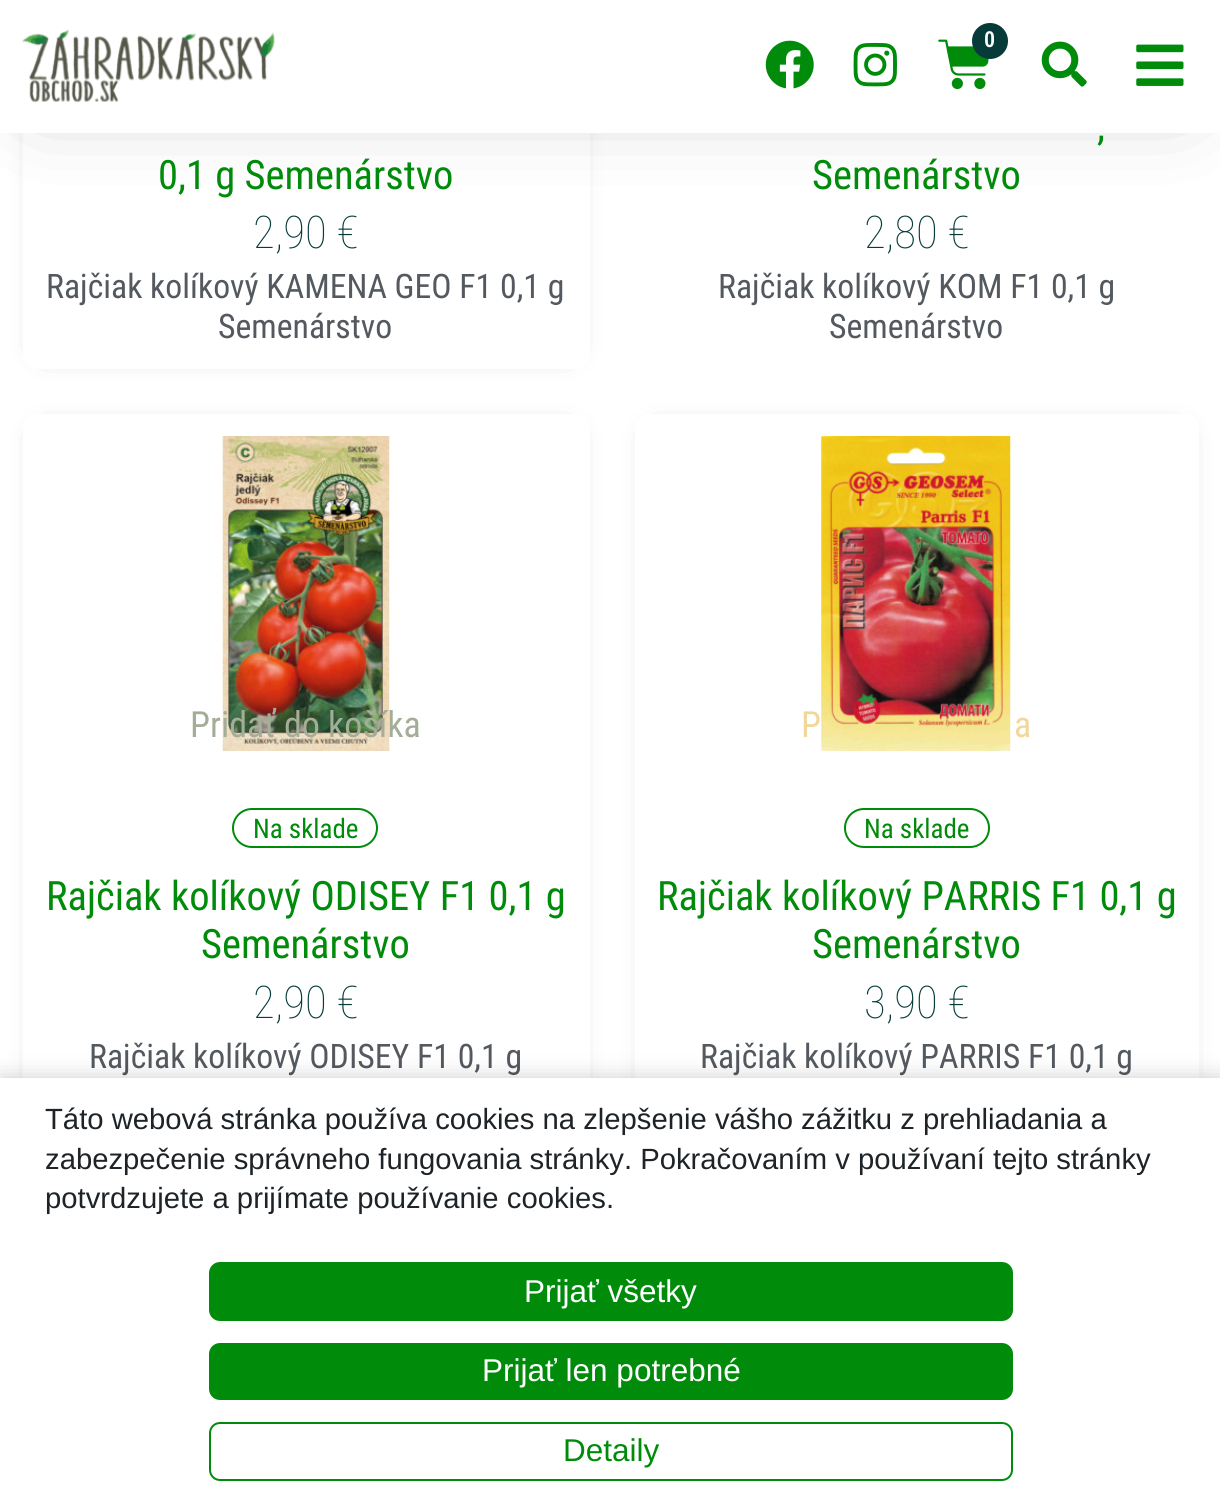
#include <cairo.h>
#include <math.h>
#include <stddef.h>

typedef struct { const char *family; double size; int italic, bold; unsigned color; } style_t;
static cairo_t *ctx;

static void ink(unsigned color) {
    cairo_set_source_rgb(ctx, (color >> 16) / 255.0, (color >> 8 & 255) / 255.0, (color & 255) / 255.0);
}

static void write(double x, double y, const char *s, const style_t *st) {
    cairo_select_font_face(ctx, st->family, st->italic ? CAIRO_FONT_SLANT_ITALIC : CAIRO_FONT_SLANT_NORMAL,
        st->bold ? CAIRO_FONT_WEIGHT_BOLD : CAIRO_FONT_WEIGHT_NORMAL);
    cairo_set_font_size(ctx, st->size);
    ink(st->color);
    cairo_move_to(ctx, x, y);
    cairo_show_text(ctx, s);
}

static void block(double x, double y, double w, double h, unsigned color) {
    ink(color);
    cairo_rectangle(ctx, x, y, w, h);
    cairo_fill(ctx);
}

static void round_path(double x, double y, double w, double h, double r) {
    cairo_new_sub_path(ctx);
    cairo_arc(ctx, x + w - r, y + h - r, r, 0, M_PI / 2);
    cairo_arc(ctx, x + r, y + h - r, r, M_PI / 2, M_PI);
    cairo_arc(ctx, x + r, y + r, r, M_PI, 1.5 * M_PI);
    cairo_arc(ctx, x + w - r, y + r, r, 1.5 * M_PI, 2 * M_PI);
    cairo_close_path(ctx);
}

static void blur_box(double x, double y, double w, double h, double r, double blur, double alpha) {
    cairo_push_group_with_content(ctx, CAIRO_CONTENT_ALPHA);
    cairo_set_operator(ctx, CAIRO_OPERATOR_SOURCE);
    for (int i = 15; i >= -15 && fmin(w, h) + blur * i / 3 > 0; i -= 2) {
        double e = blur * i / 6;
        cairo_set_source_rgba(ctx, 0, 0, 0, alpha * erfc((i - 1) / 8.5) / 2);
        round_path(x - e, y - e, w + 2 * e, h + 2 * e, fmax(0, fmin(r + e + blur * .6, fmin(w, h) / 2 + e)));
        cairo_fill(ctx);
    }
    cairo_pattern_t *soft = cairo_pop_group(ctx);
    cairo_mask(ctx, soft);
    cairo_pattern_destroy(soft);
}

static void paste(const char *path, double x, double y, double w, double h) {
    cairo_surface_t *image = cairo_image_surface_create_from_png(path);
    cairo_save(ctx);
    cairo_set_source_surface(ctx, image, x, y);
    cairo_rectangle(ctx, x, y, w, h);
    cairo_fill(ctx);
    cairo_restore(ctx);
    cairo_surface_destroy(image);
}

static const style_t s1 = {"Roboto Condensed SemiBold", 22, 0, 0, 0xffffff};
static const style_t s2 = {"Roboto Condensed", 40.5, 0, 0, 0x008b0a};
static const style_t s3 = {"Roboto Condensed Thin", 45, 0, 0, 0x073b3a};
static const style_t s4 = {"Roboto Condensed", 33.75, 0, 0, 0x54595f};
static const style_t s5 = {"Roboto Condensed", 36, 0, 0, 0xa4ad97};
static const style_t s6 = {"Roboto Condensed", 27, 0, 0, 0x008b0a};
static const style_t s7 = {"Roboto Condensed", 36, 0, 0, 0xf2d79a};
static const style_t s8 = {"Liberation Sans", 29.25, 0, 0, 0x1d2327};
static const style_t s9 = {"Liberation Sans", 31.5, 0, 0, 0xffffff};
static const style_t s10 = {"Liberation Sans", 31.5, 0, 0, 0x008b0a};

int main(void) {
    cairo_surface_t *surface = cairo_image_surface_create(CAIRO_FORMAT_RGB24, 1220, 1501);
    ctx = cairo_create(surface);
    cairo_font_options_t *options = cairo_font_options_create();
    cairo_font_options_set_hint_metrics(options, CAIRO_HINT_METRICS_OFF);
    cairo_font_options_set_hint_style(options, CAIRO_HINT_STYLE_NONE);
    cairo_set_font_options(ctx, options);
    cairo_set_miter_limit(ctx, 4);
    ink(0xffffff);
    cairo_paint(ctx);
    ink(0x000000);
    blur_box(45, -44, 522, 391, 0, 14.5, 0.5);
    ink(0xffffff);
    round_path(23, -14, 567, 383, 14);
    cairo_fill(ctx);
    ink(0x000000);
    blur_box(45, 45, 1132, 43, 0, 45, 0.36);
    block(0, 0, 1220, 133, 0xffffff);
    paste("pic1.png", 22, 29, 253, 73);
    paste("pic2.png", 765, 40, 49, 49);
    paste("pic3.png", 853, 42, 44, 45);
    paste("pic4.png", 938, 39, 51, 51);
    ink(0x073b3a);
    cairo_arc(ctx, 990, 41, 18, 0, 2 * M_PI);
    cairo_fill(ctx);
    write(984, 47, "0", &s1);
    paste("pic5.png", 1041, 41, 46, 46);
    paste("pic6.png", 1136, 44, 48, 42);
    write(158, 189, "0,1 g Semenárstvo", &s2);
    write(253, 248, "2,90 €", &s3);
    write(46, 298, "Rajčiak kolíkový KAMENA GEO F1 0,1 g", &s4);
    write(218, 338, "Semenárstvo", &s4);
    write(1097, 140, ",", &s2);
    write(812, 189, "Semenárstvo", &s2);
    write(864, 248, "2,80 €", &s3);
    write(718, 298, "Rajčiak kolíkový KOM F1 0,1 g", &s4);
    write(829, 338, "Semenárstvo", &s4);
    ink(0x000000);
    blur_box(45, 437, 522, 681, 0, 14.5, 0.5);
    ink(0xffffff);
    round_path(23, 414, 567, 727, 14);
    cairo_fill(ctx);
    paste("pic7.png", 222, 436, 168, 315);
    write(190, 737, "Pridať do košíka", &s5);
    round_path(233, 809, 144, 38, 19);
    ink(0x008b0a);
    cairo_stroke(ctx);
    write(253, 838, "Na sklade", &s6);
    write(46, 910, "Rajčiak kolíkový ODISEY F1 0,1 g", &s2);
    write(201, 958, "Semenárstvo", &s2);
    write(253, 1018, "2,90 €", &s3);
    write(89, 1068, "Rajčiak kolíkový ODISEY F1 0,1 g", &s4);
    ink(0x000000);
    blur_box(657, 437, 520, 681, 0, 14.5, 0.5);
    ink(0xffffff);
    round_path(635, 414, 564, 727, 14);
    cairo_fill(ctx);
    paste("pic8.png", 821, 436, 190, 315);
    write(801, 737, "P", &s7);
    write(1014, 737, "a", &s7);
    round_path(845, 809, 144, 38, 19);
    ink(0x008b0a);
    cairo_stroke(ctx);
    write(864, 838, "Na sklade", &s6);
    write(657, 910, "Rajčiak kolíkový PARRIS F1 0,1 g", &s2);
    write(812, 958, "Semenárstvo", &s2);
    write(864, 1018, "3,90 €", &s3);
    write(700, 1068, "Rajčiak kolíkový PARRIS F1 0,1 g", &s4);
    ink(0x000000);
    blur_box(0, 1078, 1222, 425, 0, 11, 0.2);
    block(0, 1078, 1220, 423, 0xffffff);
    write(45, 1129, "Táto webová stránka používa cookies na zlepšenie vášho zážitku z prehliadania a", &s8);
    write(45, 1169, "zabezpečenie správneho fungovania stránky. Pokračovaním v používaní tejto stránky", &s8);
    write(45, 1208, "potvrdzujete a prijímate používanie cookies.", &s8);
    ink(0x008b0a);
    round_path(210, 1263, 802, 57, 10);
    cairo_fill_preserve(ctx);
    cairo_stroke(ctx);
    write(524, 1302, "Prijať všetky", &s9);
    ink(0x008b0a);
    round_path(210, 1344, 802, 55, 10);
    cairo_fill_preserve(ctx);
    cairo_stroke(ctx);
    write(482, 1381, "Prijať len potrebné", &s9);
    round_path(210, 1423, 802, 57, 10);
    ink(0x008b0a);
    cairo_stroke(ctx);
    write(563, 1461, "Detaily", &s10);
    cairo_surface_write_to_png(surface, "screenshot.png");
    cairo_font_options_destroy(options);
    cairo_destroy(ctx);
    cairo_surface_destroy(surface);
    return 0;
}
